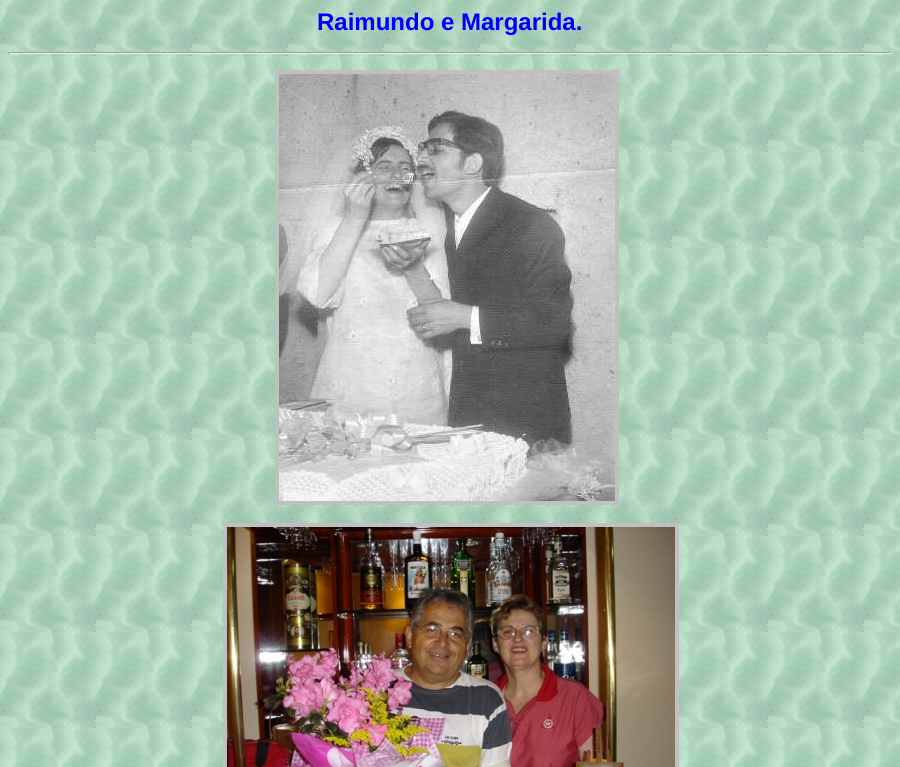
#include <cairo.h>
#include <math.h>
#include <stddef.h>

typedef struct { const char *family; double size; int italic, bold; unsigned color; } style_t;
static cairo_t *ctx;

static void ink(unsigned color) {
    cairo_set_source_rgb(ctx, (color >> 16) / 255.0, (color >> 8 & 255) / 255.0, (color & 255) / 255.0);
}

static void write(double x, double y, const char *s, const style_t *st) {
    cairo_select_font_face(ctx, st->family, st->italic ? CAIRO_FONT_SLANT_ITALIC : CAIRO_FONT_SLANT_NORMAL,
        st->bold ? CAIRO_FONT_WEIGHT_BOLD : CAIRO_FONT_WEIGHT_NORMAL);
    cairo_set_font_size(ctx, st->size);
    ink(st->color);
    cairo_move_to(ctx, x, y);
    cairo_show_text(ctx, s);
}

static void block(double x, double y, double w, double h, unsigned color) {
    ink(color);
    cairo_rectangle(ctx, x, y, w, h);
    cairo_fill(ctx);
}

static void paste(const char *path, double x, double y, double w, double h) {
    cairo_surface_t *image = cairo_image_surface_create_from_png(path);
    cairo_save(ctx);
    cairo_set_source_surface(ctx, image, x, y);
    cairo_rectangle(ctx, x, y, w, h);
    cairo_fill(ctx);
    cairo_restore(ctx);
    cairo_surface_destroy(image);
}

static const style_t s1 = {"Liberation Sans", 24, 0, 1, 0x0000ff};

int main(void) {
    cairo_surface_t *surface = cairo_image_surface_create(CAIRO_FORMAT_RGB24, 900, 767);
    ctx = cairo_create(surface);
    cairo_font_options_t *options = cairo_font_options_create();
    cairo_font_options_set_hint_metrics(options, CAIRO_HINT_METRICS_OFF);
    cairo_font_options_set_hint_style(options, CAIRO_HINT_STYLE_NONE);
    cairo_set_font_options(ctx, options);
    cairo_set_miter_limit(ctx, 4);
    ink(0xffffff);
    cairo_paint(ctx);
    paste("pic1.png", 0, 0, 900, 767);
    write(317, 30, "Raimundo e Margarida.", &s1);
    block(8, 52, 884, 1, 0x9f9f9f);
    block(891, 52, 1, 2, 0xeeeeee);
    block(8, 53, 884, 1, 0xeeeeee);
    block(8, 52, 1, 2, 0x9f9f9f);
    cairo_rectangle(ctx, 277, 72, 340, 431);
    ink(0xc0c0c0);
    cairo_set_line_width(ctx, 4);
    cairo_stroke(ctx);
    paste("pic2.png", 279, 74, 336, 427);
    cairo_rectangle(ctx, 225, 525, 452, 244);
    cairo_stroke(ctx);
    paste("pic3.png", 227, 527, 448, 240);
    cairo_surface_write_to_png(surface, "screenshot.png");
    cairo_font_options_destroy(options);
    cairo_destroy(ctx);
    cairo_surface_destroy(surface);
    return 0;
}
